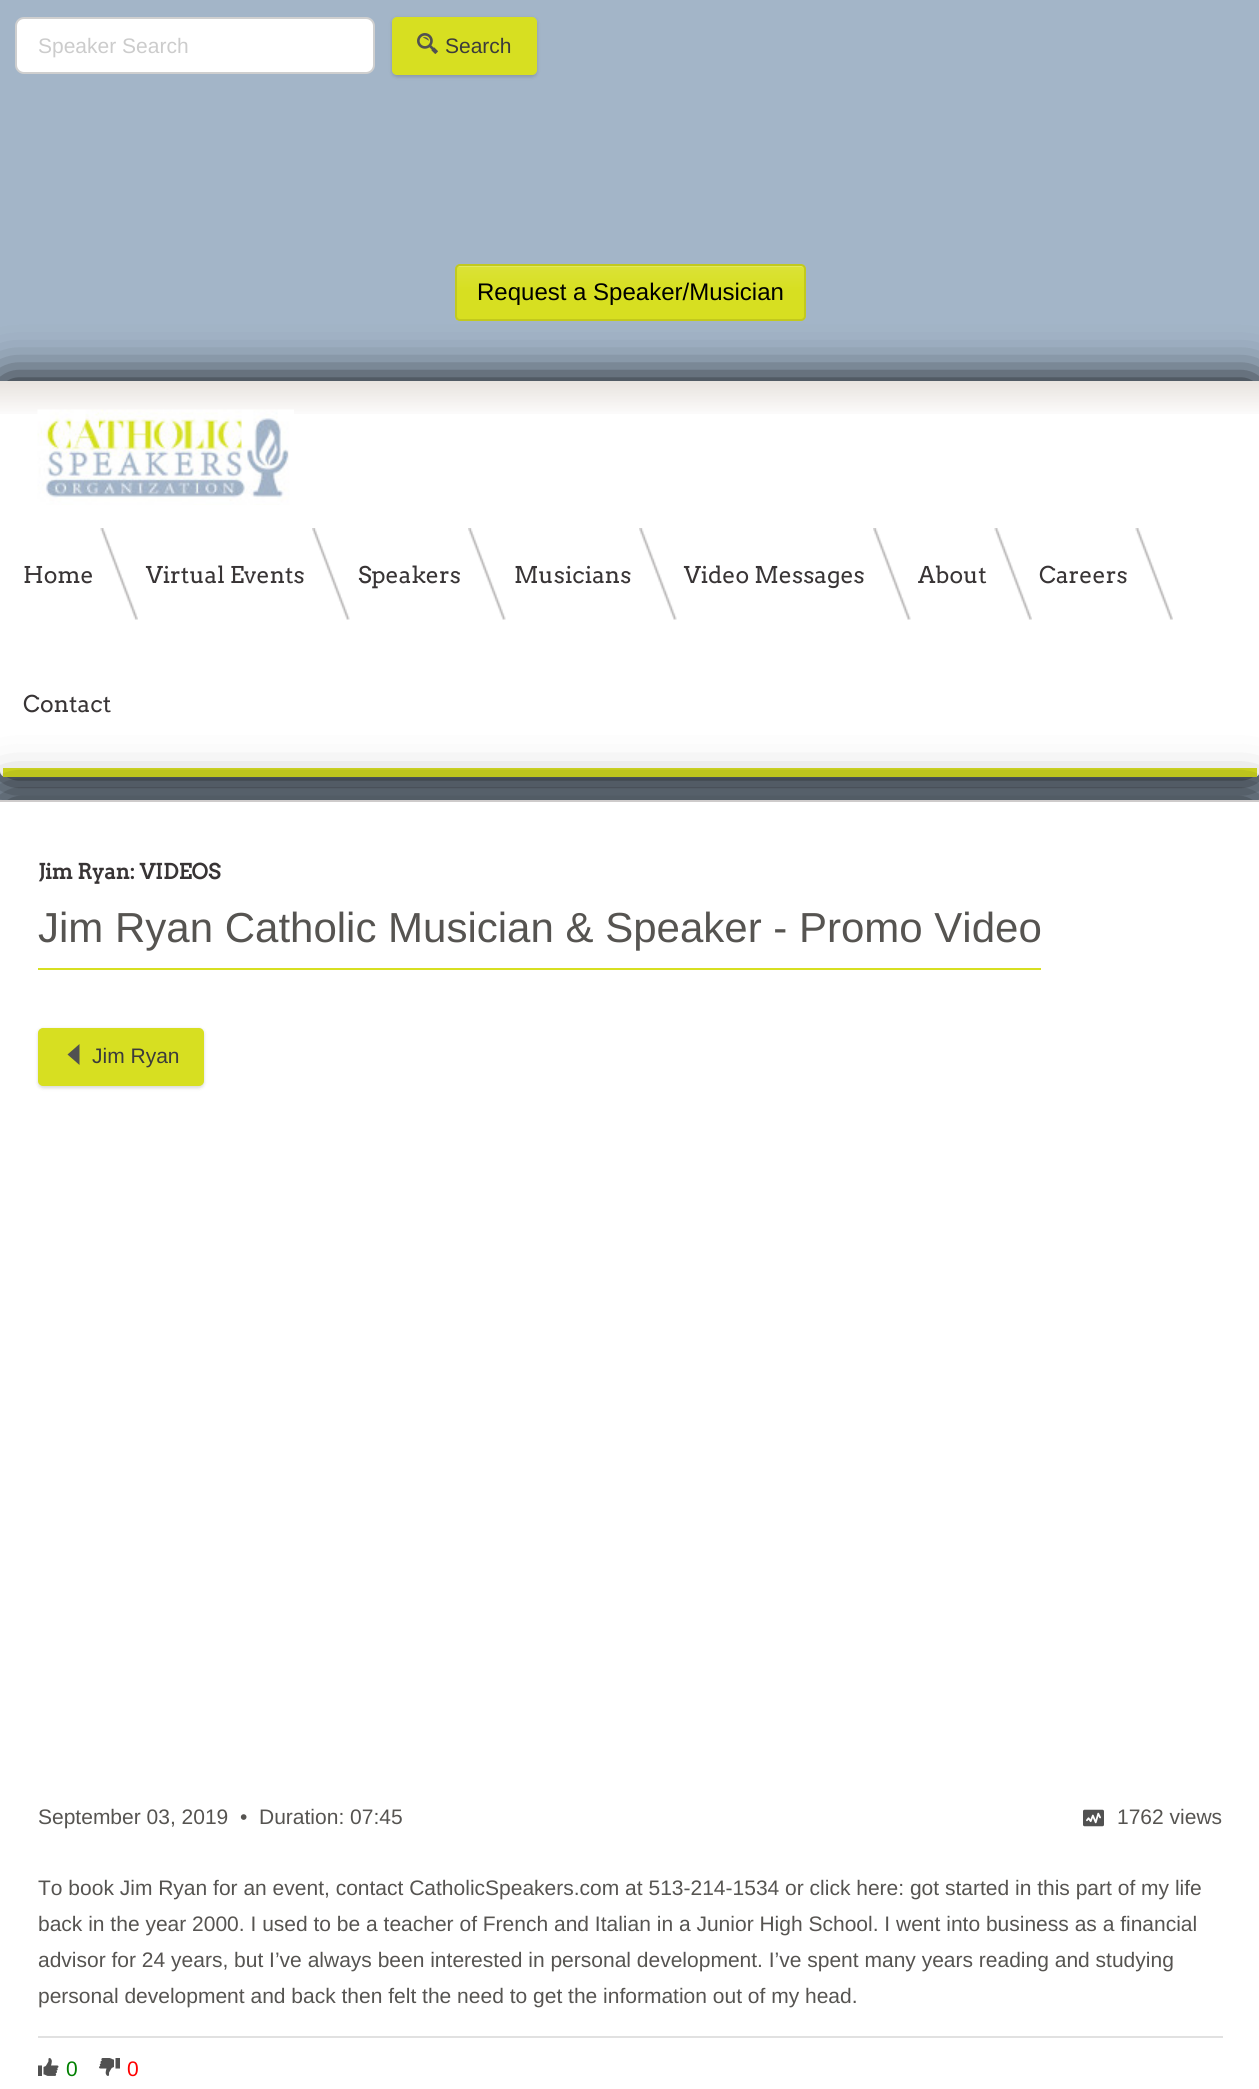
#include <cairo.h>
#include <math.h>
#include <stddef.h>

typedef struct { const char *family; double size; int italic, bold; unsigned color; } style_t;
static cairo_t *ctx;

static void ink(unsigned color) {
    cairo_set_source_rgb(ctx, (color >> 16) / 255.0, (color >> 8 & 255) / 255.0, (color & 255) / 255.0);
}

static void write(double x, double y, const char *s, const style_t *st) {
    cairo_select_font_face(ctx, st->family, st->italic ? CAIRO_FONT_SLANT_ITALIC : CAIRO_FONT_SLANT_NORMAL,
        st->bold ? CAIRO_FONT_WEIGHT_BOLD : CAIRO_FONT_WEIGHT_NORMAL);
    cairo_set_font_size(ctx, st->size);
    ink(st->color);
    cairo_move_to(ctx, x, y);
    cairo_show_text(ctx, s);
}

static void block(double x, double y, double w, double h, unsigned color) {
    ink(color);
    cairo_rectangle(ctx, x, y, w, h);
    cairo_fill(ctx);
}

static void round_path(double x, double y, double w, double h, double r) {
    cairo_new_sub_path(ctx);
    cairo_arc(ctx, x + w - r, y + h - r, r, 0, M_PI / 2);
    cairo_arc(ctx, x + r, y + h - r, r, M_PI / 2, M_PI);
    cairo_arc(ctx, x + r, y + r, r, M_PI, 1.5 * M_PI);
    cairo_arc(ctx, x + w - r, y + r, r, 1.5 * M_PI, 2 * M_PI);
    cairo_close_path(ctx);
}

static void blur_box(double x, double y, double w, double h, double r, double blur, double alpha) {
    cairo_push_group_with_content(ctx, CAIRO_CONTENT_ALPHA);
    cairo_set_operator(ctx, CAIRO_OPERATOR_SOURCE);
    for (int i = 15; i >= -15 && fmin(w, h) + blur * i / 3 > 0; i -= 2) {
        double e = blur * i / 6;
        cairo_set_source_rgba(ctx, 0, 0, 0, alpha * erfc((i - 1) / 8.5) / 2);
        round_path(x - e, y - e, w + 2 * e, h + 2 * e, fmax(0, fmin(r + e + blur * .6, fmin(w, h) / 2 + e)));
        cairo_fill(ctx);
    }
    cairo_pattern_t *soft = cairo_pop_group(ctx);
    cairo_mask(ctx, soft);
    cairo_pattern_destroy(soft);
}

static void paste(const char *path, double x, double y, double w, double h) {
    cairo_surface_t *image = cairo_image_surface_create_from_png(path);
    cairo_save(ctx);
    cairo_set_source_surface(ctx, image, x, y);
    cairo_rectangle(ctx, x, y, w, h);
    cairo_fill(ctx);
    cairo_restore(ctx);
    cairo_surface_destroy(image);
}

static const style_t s1 = {"Liberation Sans", 21, 0, 0, 0xcccccc};
static const style_t s2 = {"Liberation Sans", 21, 0, 0, 0x3b3b3b};
static const style_t s3 = {"Liberation Sans", 24, 0, 0, 0x000000};
static const style_t s4 = {"Arvo", 23, 0, 0, 0x383435};
static const style_t s5 = {"Arvo", 21, 0, 1, 0x383435};
static const style_t s6 = {"Liberation Sans", 42, 0, 0, 0x565451};
static const style_t s7 = {"Liberation Sans", 21, 0, 0, 0x565451};
static const style_t s8 = {"Liberation Sans", 21, 0, 0, 0x008000};
static const style_t s9 = {"Liberation Sans", 21, 0, 0, 0xff0000};

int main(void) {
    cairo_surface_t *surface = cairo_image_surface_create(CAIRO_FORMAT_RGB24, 1259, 2089);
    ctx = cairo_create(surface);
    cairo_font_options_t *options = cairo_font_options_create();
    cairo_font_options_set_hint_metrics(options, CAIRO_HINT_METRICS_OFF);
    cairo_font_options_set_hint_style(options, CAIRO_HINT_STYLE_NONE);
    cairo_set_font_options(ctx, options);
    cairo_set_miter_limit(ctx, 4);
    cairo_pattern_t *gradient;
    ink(0xa3b5c8);
    cairo_paint(ctx);
    ink(0xffffff);
    round_path(16, 18, 358, 55, 8);
    cairo_fill_preserve(ctx);
    ink(0xcfcfcf);
    cairo_stroke(ctx);
    write(38, 53, "Speaker Search", &s1);
    ink(0x000000);
    blur_box(392, 18, 145, 59, 5, 1.5, 0.06);
    cairo_save(ctx);
    cairo_set_fill_rule(ctx, CAIRO_FILL_RULE_EVEN_ODD);
    cairo_new_path(ctx);
    cairo_move_to(ctx, 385, 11);
    cairo_line_to(ctx, 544, 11);
    cairo_line_to(ctx, 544, 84);
    cairo_line_to(ctx, 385, 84);
    cairo_close_path(ctx);
    cairo_move_to(ctx, 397, 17);
    cairo_line_to(ctx, 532, 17);
    cairo_curve_to(ctx, 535, 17, 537, 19, 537, 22);
    cairo_line_to(ctx, 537, 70);
    cairo_curve_to(ctx, 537, 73, 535, 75, 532, 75);
    cairo_line_to(ctx, 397, 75);
    cairo_curve_to(ctx, 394, 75, 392, 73, 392, 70);
    cairo_line_to(ctx, 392, 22);
    cairo_curve_to(ctx, 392, 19, 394, 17, 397, 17);
    cairo_close_path(ctx);
    cairo_clip(ctx);
    blur_box(392, 18, 145, 59, 5, 2, 0.1);
    cairo_restore(ctx);
    ink(0xd7df21);
    round_path(393, 18, 143, 56, 4);
    cairo_fill_preserve(ctx);
    cairo_stroke(ctx);
    paste("pic1.png", 417, 33, 21, 21);
    write(445, 53, "Search", &s2);
    gradient = cairo_pattern_create_linear(630, 266, 630, 320);
    cairo_pattern_add_color_stop_rgba(gradient, 0, 0.859, 0.886, 0.216, 1);
    cairo_pattern_add_color_stop_rgba(gradient, 0.45, 0.843, 0.875, 0.129, 1);
    cairo_pattern_add_color_stop_rgba(gradient, 1, 0.843, 0.875, 0.129, 1);
    cairo_set_source(ctx, gradient);
    cairo_pattern_destroy(gradient);
    cairo_rectangle(ctx, 456, 266, 348, 54);
    cairo_fill(ctx);
    ink(0xe2e85f);
    cairo_new_path(ctx);
    cairo_move_to(ctx, 459, 267);
    cairo_line_to(ctx, 801, 267);
    cairo_curve_to(ctx, 803, 267, 804, 268, 804, 270);
    cairo_curve_to(ctx, 804, 268, 803, 266, 801, 266);
    cairo_line_to(ctx, 459, 266);
    cairo_line_to(ctx, 457, 267);
    cairo_line_to(ctx, 456, 270);
    cairo_curve_to(ctx, 456, 268, 457, 267, 459, 267);
    cairo_close_path(ctx);
    cairo_fill(ctx);
    round_path(456, 265, 349, 55, 4);
    ink(0xc2c91d);
    cairo_stroke(ctx);
    write(477, 300, "Request a Speaker/Musician", &s3);
    ink(0x000000);
    blur_box(0, 381, 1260, 396, 6, 22.5, 1);
    ink(0xffffff);
    cairo_new_path(ctx);
    cairo_move_to(ctx, 0, 381);
    cairo_line_to(ctx, 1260, 381);
    cairo_line_to(ctx, 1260, 771);
    cairo_curve_to(ctx, 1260, 774.5, 1257.5, 777, 1254, 777);
    cairo_line_to(ctx, 6, 777);
    cairo_curve_to(ctx, 2.5, 777, 0, 774.5, 0, 771);
    cairo_close_path(ctx);
    cairo_fill(ctx);
    paste("pic2.png", 0, 381, 1259, 33);
    block(3, 768, 1254, 9, 0xd7df21);
    paste("pic3.png", 37, 409, 257, 96);
    paste("pic4.png", 100, 528, 38, 92);
    write(23, 583, "Home", &s4);
    paste("pic5.png", 312, 528, 38, 92);
    write(146, 583, "Virtual Events", &s4);
    paste("pic5.png", 468, 528, 38, 92);
    write(358, 583, "Speakers", &s4);
    paste("pic6.png", 639, 528, 38, 92);
    write(514, 583, "Musicians", &s4);
    paste("pic6.png", 873, 528, 38, 92);
    write(684, 583, "Video Messages", &s4);
    paste("pic4.png", 994, 528, 38, 92);
    write(918, 583, "About", &s4);
    paste("pic7.png", 1135, 528, 38, 92);
    write(1039, 583, "Careers", &s4);
    write(23, 712, "Contact", &s4);
    ink(0x000000);
    blur_box(0, 800, 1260, 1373, 6, 26, 0.8);
    block(0, 802, 1259, 1287, 0xffffff);
    block(0, 800, 1259, 2, 0xcecbcb);
    write(38, 879, "Jim Ryan: VIDEOS", &s5);
    block(38, 968, 1003, 2, 0xd7df21);
    write(38, 942, "Jim Ryan Catholic Musician & Speaker - Promo Video", &s6);
    ink(0x000000);
    blur_box(38, 1029, 166, 59, 5, 1.5, 0.06);
    blur_box(38, 1029, 166, 59, 5, 2, 0.1);
    ink(0xd7df21);
    round_path(39, 1029, 164, 56, 4);
    cairo_fill_preserve(ctx);
    cairo_stroke(ctx);
    ink(0x515151);
    cairo_new_path(ctx);
    cairo_move_to(ctx, 79.5, 1044);
    cairo_line_to(ctx, 67.5, 1054.5);
    cairo_line_to(ctx, 79.5, 1065);
    cairo_close_path(ctx);
    cairo_fill(ctx);
    write(92, 1063, "Jim Ryan", &s2);
    write(38, 1824, "September 03, 2019", &s7);
    write(240, 1824, "•", &s7);
    write(259, 1824, "Duration: 07:45", &s7);
    paste("pic8.png", 1083, 1809, 21, 18);
    write(1117, 1824, "1762 views", &s7);
    block(38, 2036, 1185, 2, 0xe1e1e1);
    write(38, 1895, "To book Jim Ryan for an event, contact CatholicSpeakers.com at 513-214-1534 or click here: got started in this part of my life", &s7);
    write(38, 1931, "back in the year 2000. I used to be a teacher of French and Italian in a Junior High School. I went into business as a financial", &s7);
    write(38, 1967, "advisor for 24 years, but I’ve always been interested in personal development. I’ve spent many years reading and studying", &s7);
    write(38, 2003, "personal development and back then felt the need to get the information out of my head.", &s7);
    paste("pic9.png", 38, 2058, 21, 18);
    write(66, 2076, "0", &s8);
    paste("pic10.png", 99, 2058, 21, 18);
    write(127, 2076, "0", &s9);
    cairo_surface_write_to_png(surface, "screenshot.png");
    cairo_font_options_destroy(options);
    cairo_destroy(ctx);
    cairo_surface_destroy(surface);
    return 0;
}
